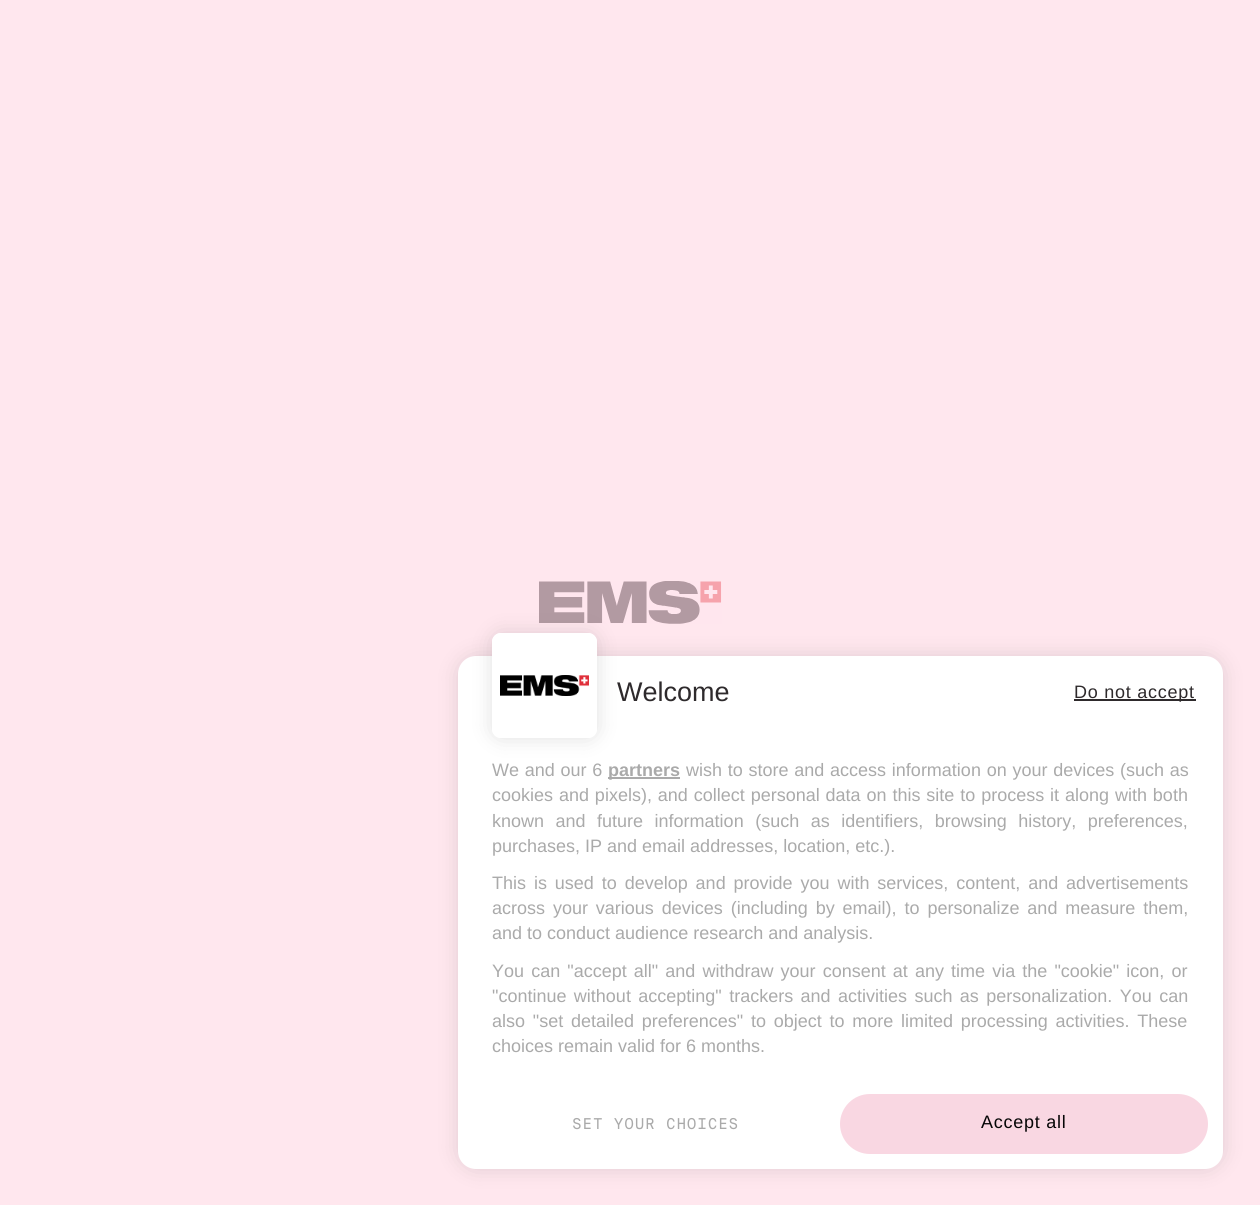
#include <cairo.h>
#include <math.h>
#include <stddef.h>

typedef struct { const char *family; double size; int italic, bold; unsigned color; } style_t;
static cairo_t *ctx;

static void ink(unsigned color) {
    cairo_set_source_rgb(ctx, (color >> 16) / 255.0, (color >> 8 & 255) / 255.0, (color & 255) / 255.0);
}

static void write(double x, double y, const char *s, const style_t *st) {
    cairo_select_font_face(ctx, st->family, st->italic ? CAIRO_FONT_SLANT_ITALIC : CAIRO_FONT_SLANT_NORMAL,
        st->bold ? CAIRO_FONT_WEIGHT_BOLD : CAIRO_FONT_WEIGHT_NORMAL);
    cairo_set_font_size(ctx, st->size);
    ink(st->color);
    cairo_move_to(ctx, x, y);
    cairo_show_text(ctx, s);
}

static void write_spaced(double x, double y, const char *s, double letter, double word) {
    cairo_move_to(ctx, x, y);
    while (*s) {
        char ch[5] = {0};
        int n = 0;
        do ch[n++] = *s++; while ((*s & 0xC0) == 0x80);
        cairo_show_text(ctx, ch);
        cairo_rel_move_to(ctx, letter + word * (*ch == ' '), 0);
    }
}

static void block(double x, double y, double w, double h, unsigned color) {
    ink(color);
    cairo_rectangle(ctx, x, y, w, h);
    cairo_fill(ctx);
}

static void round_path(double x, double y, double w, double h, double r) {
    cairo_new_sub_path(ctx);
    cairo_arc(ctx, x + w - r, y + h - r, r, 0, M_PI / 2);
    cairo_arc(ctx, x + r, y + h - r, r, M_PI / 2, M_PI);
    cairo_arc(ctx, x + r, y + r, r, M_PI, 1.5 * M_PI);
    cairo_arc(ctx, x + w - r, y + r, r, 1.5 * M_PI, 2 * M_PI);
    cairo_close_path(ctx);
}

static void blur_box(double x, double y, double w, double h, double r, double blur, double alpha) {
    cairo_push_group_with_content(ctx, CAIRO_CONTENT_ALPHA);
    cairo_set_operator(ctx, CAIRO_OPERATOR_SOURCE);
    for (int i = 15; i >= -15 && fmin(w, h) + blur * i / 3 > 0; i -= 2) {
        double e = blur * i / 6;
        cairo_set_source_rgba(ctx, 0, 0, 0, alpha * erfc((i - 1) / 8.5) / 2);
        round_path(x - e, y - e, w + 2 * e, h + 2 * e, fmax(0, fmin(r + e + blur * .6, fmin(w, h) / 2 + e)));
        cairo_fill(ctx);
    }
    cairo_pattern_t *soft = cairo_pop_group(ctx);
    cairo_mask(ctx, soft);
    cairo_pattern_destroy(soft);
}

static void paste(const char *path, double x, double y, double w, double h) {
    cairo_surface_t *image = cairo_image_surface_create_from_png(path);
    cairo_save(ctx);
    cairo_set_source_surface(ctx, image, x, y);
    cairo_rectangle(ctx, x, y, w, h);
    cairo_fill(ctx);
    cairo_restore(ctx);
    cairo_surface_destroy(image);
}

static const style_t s1 = {"Liberation Sans", 27, 0, 0, 0x2e2a2c};
static const style_t s2 = {"Liberation Sans", 18, 0, 1, 0xaaaaaa};
static const style_t s3 = {"Liberation Sans", 18, 0, 0, 0xaaaaaa};

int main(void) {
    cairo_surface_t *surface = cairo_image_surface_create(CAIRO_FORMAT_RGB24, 1260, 1205);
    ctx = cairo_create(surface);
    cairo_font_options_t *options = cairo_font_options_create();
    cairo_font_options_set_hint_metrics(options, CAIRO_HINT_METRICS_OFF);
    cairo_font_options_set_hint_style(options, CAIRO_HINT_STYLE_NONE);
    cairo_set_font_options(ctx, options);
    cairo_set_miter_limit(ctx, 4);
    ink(0xffe7ee);
    cairo_paint(ctx);
    paste("pic1.png", 539, 581, 183, 43);
    ink(0x000000);
    blur_box(458, 656, 765, 513, 18, 11, 0.12);
    ink(0xffffff);
    round_path(458, 656, 765, 513, 18);
    cairo_fill(ctx);
    ink(0x000000);
    blur_box(492, 633, 105, 105, 9, 11, 0.12);
    ink(0xffffff);
    round_path(492, 633, 105, 105, 9);
    cairo_fill(ctx);
    paste("pic2.png", 500, 675, 89, 21);
    round_path(496, 637, 97, 97, 5);
    cairo_set_line_width(ctx, 8);
    cairo_stroke(ctx);
    write(617, 701, "Welcome", &s1);
    block(1074, 699, 122, 2, 0x2e2a2c);
    cairo_set_font_size(ctx, 18);
    write_spaced(1074, 698, "Do not accept", 0.75, 0);
    ink(0xaaaaaa);
    write_spaced(492, 776, "We and our 6", 0, 0.75);
    block(608, 777, 72, 2, 0xaaaaaa);
    write(608, 776, "partners", &s2);
    cairo_select_font_face(ctx, "Liberation Sans", CAIRO_FONT_SLANT_NORMAL, CAIRO_FONT_WEIGHT_NORMAL);
    write_spaced(686, 776, "wish to store and access information on your devices (such as", 0, 0.75);
    write_spaced(492, 801, "cookies and pixels), and collect personal data on this site to process it along with both", 0, 0.9);
    write_spaced(492, 827, "known and future information (such as identifiers, browsing history, preferences,", 0, 6.5);
    write(492, 852, "purchases, IP and email addresses, location, etc.).", &s3);
    write_spaced(492, 889, "This is used to develop and provide you with services, content, and advertisements", 0, 2.9);
    write_spaced(492, 914, "across your various devices (including by email), to personalize and measure them,", 0, 2.9);
    write(492, 939, "and to conduct audience research and analysis.", &s3);
    write_spaced(492, 977, "You can \"accept all\" and withdraw your consent at any time via the \"cookie\" icon, or", 0, 2.1);
    write_spaced(492, 1002, "\"continue without accepting\" trackers and activities such as personalization. You can", 0, 2.4);
    write_spaced(492, 1027, "also \"set detailed preferences\" to object to more limited processing activities. These", 0, 2.75);
    write(492, 1052, "choices remain valid for 6 months.", &s3);
    cairo_select_font_face(ctx, "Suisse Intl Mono", CAIRO_FONT_SLANT_NORMAL, CAIRO_FONT_WEIGHT_NORMAL);
    cairo_set_font_size(ctx, 15);
    write_spaced(572, 1129, "SET YOUR CHOICES", 0.75, 0);
    ink(0xf9d7e2);
    round_path(840, 1094, 368, 60, 30);
    cairo_fill(ctx);
    cairo_select_font_face(ctx, "Liberation Sans", CAIRO_FONT_SLANT_NORMAL, CAIRO_FONT_WEIGHT_NORMAL);
    cairo_set_font_size(ctx, 18);
    ink(0x060606);
    write_spaced(981, 1128, "Accept all", 0.75, 0);
    cairo_surface_write_to_png(surface, "screenshot.png");
    cairo_font_options_destroy(options);
    cairo_destroy(ctx);
    cairo_surface_destroy(surface);
    return 0;
}
